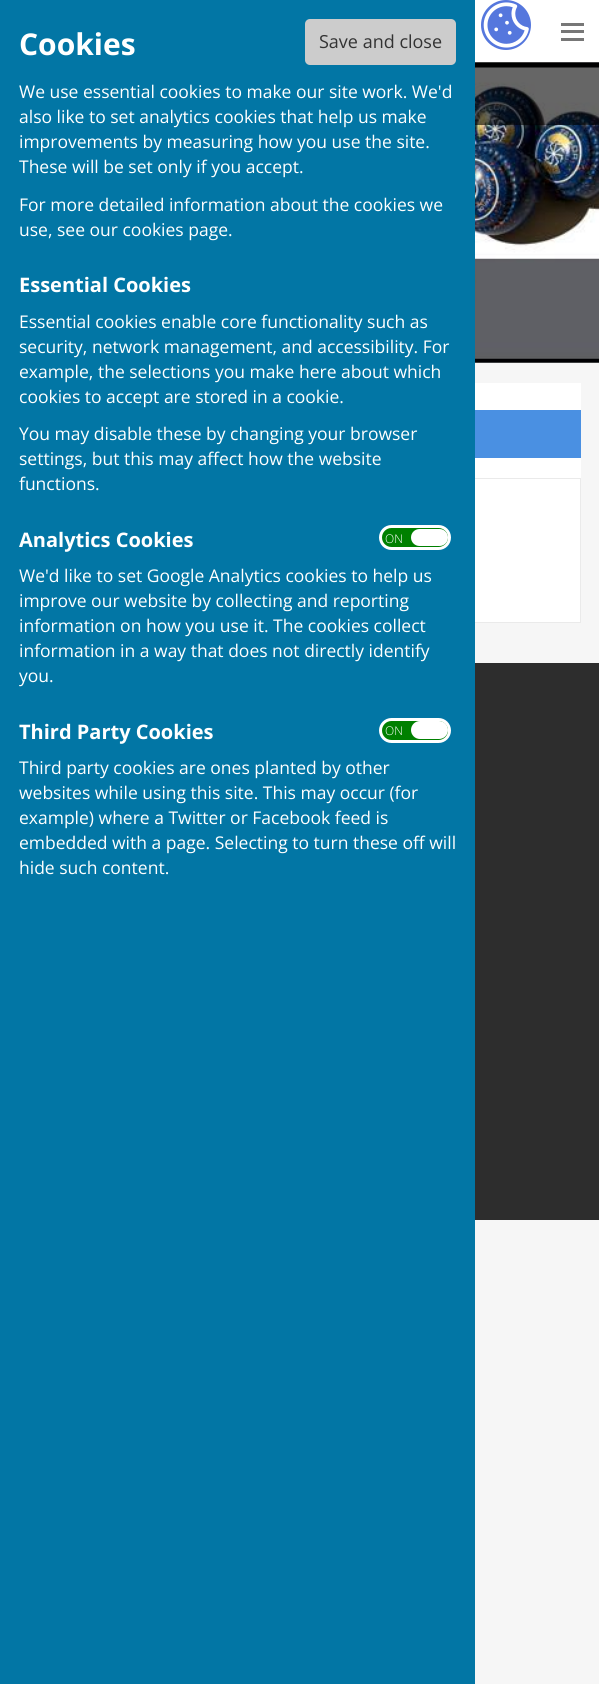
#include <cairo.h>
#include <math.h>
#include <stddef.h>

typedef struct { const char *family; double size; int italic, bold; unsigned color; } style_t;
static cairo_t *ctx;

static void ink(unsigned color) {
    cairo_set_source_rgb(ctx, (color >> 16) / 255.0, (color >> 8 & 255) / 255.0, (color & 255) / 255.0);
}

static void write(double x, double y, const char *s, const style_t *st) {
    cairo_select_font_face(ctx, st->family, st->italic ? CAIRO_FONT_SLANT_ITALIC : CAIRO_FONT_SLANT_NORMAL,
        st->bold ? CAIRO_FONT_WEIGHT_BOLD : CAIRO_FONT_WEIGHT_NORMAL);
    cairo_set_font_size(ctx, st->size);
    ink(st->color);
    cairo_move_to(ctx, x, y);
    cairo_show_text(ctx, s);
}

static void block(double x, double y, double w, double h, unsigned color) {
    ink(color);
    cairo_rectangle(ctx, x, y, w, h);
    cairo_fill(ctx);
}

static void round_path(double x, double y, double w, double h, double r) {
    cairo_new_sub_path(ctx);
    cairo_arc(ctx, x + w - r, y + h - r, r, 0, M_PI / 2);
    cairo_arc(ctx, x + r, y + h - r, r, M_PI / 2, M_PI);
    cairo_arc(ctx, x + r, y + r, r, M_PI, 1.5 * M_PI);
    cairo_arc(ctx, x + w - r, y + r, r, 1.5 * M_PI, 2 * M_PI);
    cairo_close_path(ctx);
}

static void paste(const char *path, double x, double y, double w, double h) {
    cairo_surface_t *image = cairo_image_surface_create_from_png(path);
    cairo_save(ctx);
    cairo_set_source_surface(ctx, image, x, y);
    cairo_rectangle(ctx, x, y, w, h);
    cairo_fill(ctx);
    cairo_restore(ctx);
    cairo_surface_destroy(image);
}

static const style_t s1 = {"Open Sans", 30, 0, 1, 0xffffff};
static const style_t s2 = {"Open Sans", 18, 0, 0, 0x333333};
static const style_t s3 = {"Open Sans", 17.5, 0, 0, 0xffffff};
static const style_t s4 = {"Open Sans", 20, 0, 1, 0xffffff};
static const style_t s5 = {"Open Sans Light", 12, 0, 0, 0xffffff};

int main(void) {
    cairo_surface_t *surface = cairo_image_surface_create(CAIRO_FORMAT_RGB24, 599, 1684);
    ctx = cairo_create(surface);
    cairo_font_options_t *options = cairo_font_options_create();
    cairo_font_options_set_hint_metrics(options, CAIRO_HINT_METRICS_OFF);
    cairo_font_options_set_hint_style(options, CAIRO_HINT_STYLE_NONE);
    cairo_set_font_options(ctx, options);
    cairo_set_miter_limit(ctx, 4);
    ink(0xf6f6f6);
    cairo_paint(ctx);
    block(475, 0, 124, 63, 0xffffff);
    ink(0x5577dd);
    cairo_arc(ctx, 506, 25, 25, 0, 2 * M_PI);
    cairo_fill(ctx);
    paste("pic1.png", 483, 2, 46, 46);
    block(561, 38, 23, 3, 0x777777);
    block(561, 30, 23, 3, 0x777777);
    block(561, 23, 23, 3, 0x777777);
    paste("pic2.png", 475, 62, 124, 301);
    paste("pic3.png", 475, 62, 124, 301);
    block(475, 383, 106, 239, 0xffffff);
    block(475, 410, 106, 48, 0x4a90e2);
    cairo_rectangle(ctx, 19.5, 478.5, 561, 144);
    ink(0xeaeaea);
    cairo_set_line_width(ctx, 1);
    cairo_stroke(ctx);
    block(475, 663, 124, 557, 0x2d2d2d);
    cairo_set_source_rgba(ctx, 0, 0, 0, 0.6);
    cairo_rectangle(ctx, 475, 67, 124, 58);
    cairo_fill(ctx);
    block(0, 0, 475, 1684, 0x0276a5);
    write(19, 55, "Cookies", &s1);
    ink(0xcccccc);
    round_path(305, 19, 151, 46, 5);
    cairo_fill(ctx);
    write(319, 48, "Save and close", &s2);
    write(19, 98, "We use essential cookies to make our site work. We'd", &s3);
    write(19, 123, "also like to set analytics cookies that help us make", &s3);
    write(19, 148, "improvements by measuring how you use the site.", &s3);
    write(19, 173, "These will be set only if you accept.", &s3);
    write(19, 211, "For more detailed information about the cookies we", &s3);
    write(19, 236, "use, see our cookies page.", &s3);
    write(19, 292, "Essential Cookies", &s4);
    write(19, 328, "Essential cookies enable core functionality such as", &s3);
    write(19, 353, "security, network management, and accessibility. For", &s3);
    write(19, 378, "example, the selections you make here about which", &s3);
    write(19, 403, "cookies to accept are stored in a cookie.", &s3);
    write(19, 440, "You may disable these by changing your browser", &s3);
    write(19, 465, "settings, but this may affect how the website", &s3);
    write(19, 490, "functions.", &s3);
    write(19, 547, "Analytics Cookies", &s4);
    ink(0x008000);
    round_path(380.5, 526.5, 69, 22, 11);
    cairo_fill_preserve(ctx);
    ink(0xffffff);
    cairo_set_line_width(ctx, 3);
    cairo_stroke(ctx);
    write(385, 543, "ON", &s5);
    round_path(411, 529, 37, 17, 8.5);
    cairo_fill(ctx);
    write(19, 582, "We'd like to set Google Analytics cookies to help us", &s3);
    write(19, 607, "improve our website by collecting and reporting", &s3);
    write(19, 632, "information on how you use it. The cookies collect", &s3);
    write(19, 657, "information in a way that does not directly identify", &s3);
    write(19, 682, "you.", &s3);
    write(19, 739, "Third Party Cookies", &s4);
    ink(0x008000);
    round_path(380.5, 719.5, 69, 22, 11);
    cairo_fill_preserve(ctx);
    ink(0xffffff);
    cairo_stroke(ctx);
    write(385, 735, "ON", &s5);
    round_path(411, 721, 37, 18, 9);
    cairo_fill(ctx);
    write(19, 774, "Third party cookies are ones planted by other", &s3);
    write(19, 799, "websites while using this site. This may occur (for", &s3);
    write(19, 824, "example) where a Twitter or Facebook feed is", &s3);
    write(19, 849, "embedded with a page. Selecting to turn these off will", &s3);
    write(19, 874, "hide such content.", &s3);
    cairo_surface_write_to_png(surface, "screenshot.png");
    cairo_font_options_destroy(options);
    cairo_destroy(ctx);
    cairo_surface_destroy(surface);
    return 0;
}
